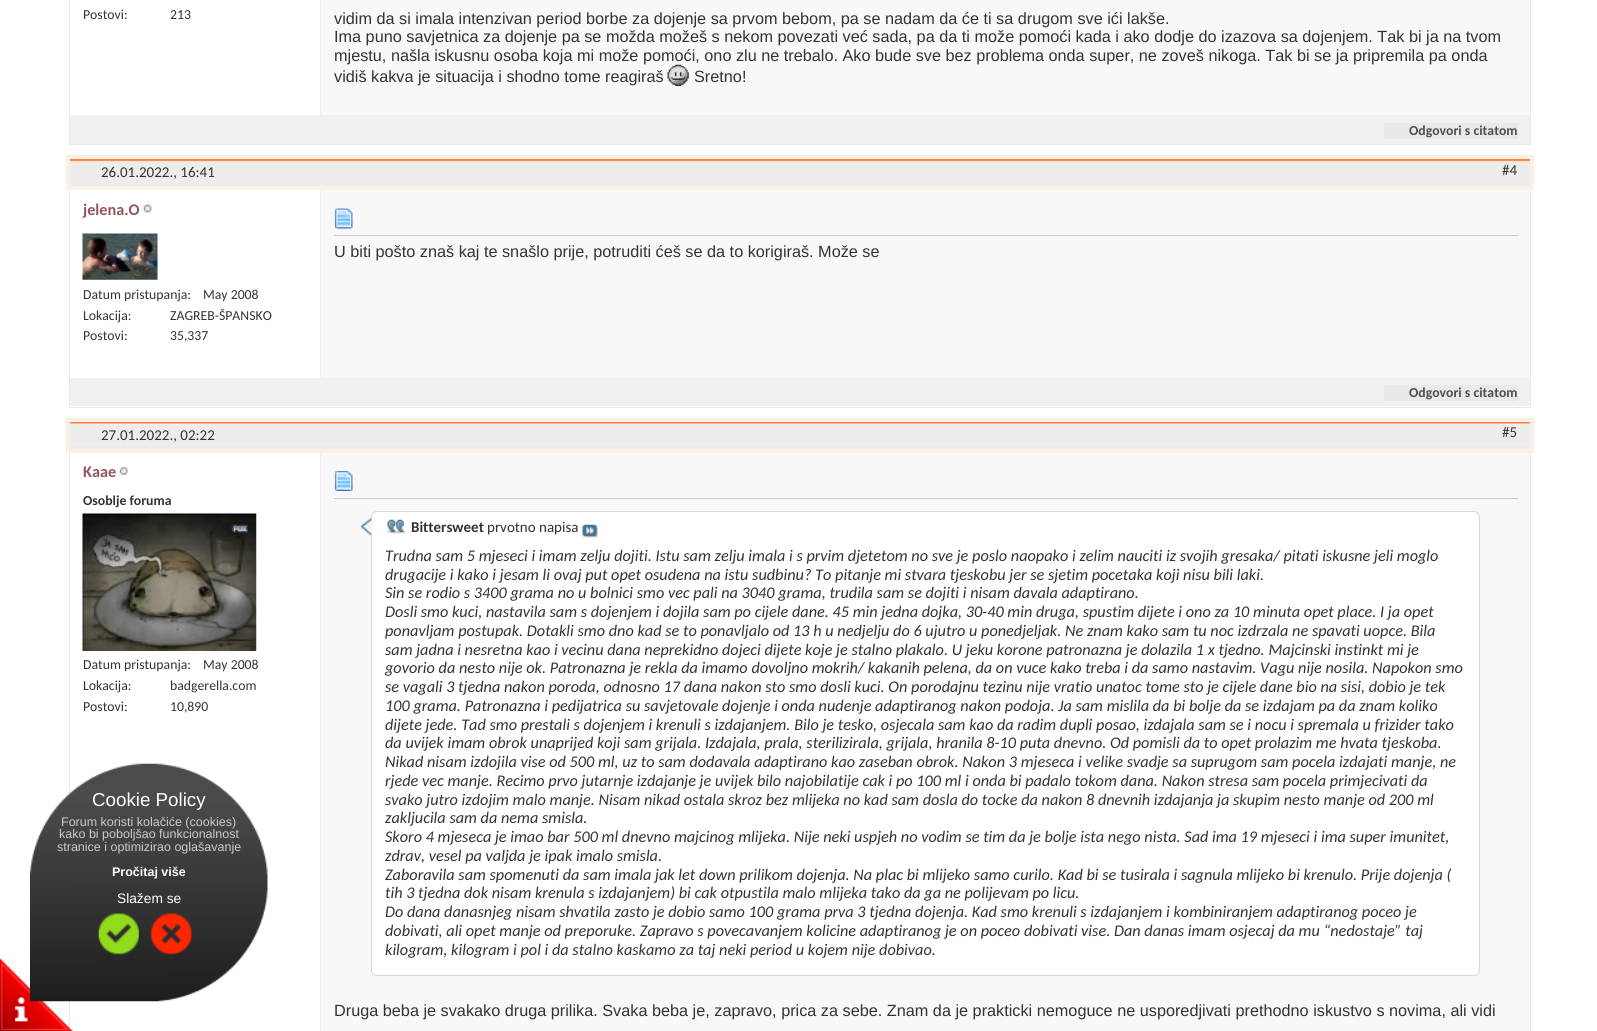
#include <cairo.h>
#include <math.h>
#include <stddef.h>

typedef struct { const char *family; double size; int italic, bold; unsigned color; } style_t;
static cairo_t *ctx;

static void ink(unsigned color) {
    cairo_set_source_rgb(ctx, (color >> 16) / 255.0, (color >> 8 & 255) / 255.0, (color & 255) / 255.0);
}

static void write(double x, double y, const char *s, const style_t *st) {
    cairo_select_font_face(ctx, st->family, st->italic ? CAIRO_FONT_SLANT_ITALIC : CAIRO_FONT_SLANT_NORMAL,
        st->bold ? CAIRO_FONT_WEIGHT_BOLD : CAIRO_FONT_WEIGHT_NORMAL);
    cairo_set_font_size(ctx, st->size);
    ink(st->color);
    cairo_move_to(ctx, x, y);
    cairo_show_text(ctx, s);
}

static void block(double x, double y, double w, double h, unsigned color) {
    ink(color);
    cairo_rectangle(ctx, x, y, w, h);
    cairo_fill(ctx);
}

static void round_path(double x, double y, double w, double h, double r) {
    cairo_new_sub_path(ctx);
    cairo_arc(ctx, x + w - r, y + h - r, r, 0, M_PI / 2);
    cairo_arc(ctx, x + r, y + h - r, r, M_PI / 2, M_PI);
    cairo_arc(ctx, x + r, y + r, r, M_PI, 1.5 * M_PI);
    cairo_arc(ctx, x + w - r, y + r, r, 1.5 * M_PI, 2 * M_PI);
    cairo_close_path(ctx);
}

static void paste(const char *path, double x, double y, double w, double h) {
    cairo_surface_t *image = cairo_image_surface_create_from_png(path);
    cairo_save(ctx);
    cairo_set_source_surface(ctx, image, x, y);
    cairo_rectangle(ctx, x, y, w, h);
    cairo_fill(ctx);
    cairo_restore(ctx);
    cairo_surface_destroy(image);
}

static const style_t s1 = {"Carlito", 13.75, 0, 0, 0x333330};
static const style_t s2 = {"Liberation Sans", 16.25, 0, 0, 0x333330};
static const style_t s3 = {"Carlito", 13.75, 0, 1, 0x4e4e4e};
static const style_t s4 = {"Carlito", 15, 0, 0, 0x333330};
static const style_t s5 = {"Carlito", 16.25, 0, 1, 0x95555d};
static const style_t s6 = {"Carlito", 13.75, 0, 1, 0x333330};
static const style_t s7 = {"Carlito", 15, 0, 1, 0x333330};
static const style_t s8 = {"Carlito", 16.25, 1, 0, 0x333330};
static const style_t s9 = {"Liberation Sans", 18.75, 0, 0, 0xffffff};
static const style_t s10 = {"Liberation Sans", 12.5, 0, 0, 0xcccccc};
static const style_t s11 = {"Liberation Sans", 12.5, 0, 1, 0xffffff};
static const style_t s12 = {"Liberation Sans", 13.75, 0, 0, 0xffffff};

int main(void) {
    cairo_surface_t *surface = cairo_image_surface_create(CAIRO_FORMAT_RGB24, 1597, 1031);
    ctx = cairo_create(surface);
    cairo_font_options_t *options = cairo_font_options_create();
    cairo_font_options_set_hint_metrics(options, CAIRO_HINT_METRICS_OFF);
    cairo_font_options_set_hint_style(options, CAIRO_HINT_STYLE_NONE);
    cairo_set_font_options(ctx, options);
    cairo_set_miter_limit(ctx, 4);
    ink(0xffffff);
    cairo_paint(ctx);
    cairo_rectangle(ctx, 69.5, -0.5, 1461, 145);
    ink(0xe9e9e9);
    cairo_set_line_width(ctx, 1);
    cairo_stroke(ctx);
    write(83, 19, "Postovi:", &s1);
    write(170, 19, "213", &s1);
    block(321, 0, 1209, 115, 0xf8f8f8);
    block(320, 0, 1, 115, 0xefefef);
    write(334, 24, "vidim da si imala intenzivan period borbe za dojenje sa prvom bebom, pa se nadam da će ti sa drugom sve ići lakše.", &s2);
    write(334, 42, "Ima puno savjetnica za dojenje pa se možda možeš s nekom povezati već sada, pa da ti može pomoći kada i ako dodje do izazova sa dojenjem. Tak bi ja na tvom", &s2);
    write(334, 61, "mjestu, našla iskusnu osoba koja mi može pomoći, ono zlu ne trebalo. Ako bude sve bez problema onda super, ne zoveš nikoga. Tak bi se ja pripremila pa onda", &s2);
    write(334, 82, "vidiš kakva je situacija i shodno tome reagiraš", &s2);
    paste("pic1.png", 667, 64, 22, 22);
    write(694, 82, "Sretno!", &s2);
    block(70, 115, 1460, 29, 0xf1f1f1);
    block(1384, 123, 134, 16, 0xe9e9e9);
    write(1409, 135, "Odgovori s citatom", &s3);
    cairo_rectangle(ctx, 69.5, 158.5, 1461, 249);
    ink(0xe9e9e9);
    cairo_stroke(ctx);
    paste("pic2.png", 70, 159, 1460, 27);
    cairo_rectangle(ctx, 68, 157, 1464, 31);
    ink(0xfaf0e6);
    cairo_set_line_width(ctx, 4);
    cairo_stroke(ctx);
    write(101, 177, "26.01.2022., 16:41", &s4);
    write(1502, 175, "#4", &s4);
    write(83, 215, "jelena.O", &s5);
    paste("pic3.png", 143, 204, 9, 9);
    paste("pic4.png", 82, 233, 76, 47);
    write(83, 299, "Datum pristupanja:", &s1);
    write(203, 299, "May 2008", &s1);
    write(83, 320, "Lokacija:", &s1);
    write(170, 320, "ZAGREB-ŠPANSKO", &s1);
    write(83, 340, "Postovi:", &s1);
    write(170, 340, "35,337", &s1);
    block(321, 190, 1209, 188, 0xf8f8f8);
    block(320, 190, 1, 188, 0xefefef);
    block(334, 235, 1184, 1, 0xc8c8c8);
    paste("pic5.png", 334, 208, 19, 21);
    write(334, 257, "U biti pošto znaš kaj te snašlo prije, potruditi ćeš se da to korigiraš. Može se", &s2);
    block(70, 378, 1460, 28, 0xf1f1f1);
    block(1384, 385, 134, 16, 0xe9e9e9);
    write(1409, 397, "Odgovori s citatom", &s3);
    cairo_rectangle(ctx, 69.5, 420.5, 1461, 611);
    ink(0xe9e9e9);
    cairo_set_line_width(ctx, 1);
    cairo_stroke(ctx);
    paste("pic6.png", 70, 422, 1460, 27);
    cairo_rectangle(ctx, 68, 420, 1464, 31);
    ink(0xfaf0e6);
    cairo_set_line_width(ctx, 4);
    cairo_stroke(ctx);
    write(101, 440, "27.01.2022., 02:22", &s4);
    write(1502, 437, "#5", &s4);
    write(83, 477, "Kaae", &s5);
    paste("pic7.png", 119, 467, 9, 8);
    write(83, 505, "Osoblje foruma", &s6);
    paste("pic8.png", 82, 513, 175, 138);
    write(83, 669, "Datum pristupanja:", &s1);
    write(203, 669, "May 2008", &s1);
    write(83, 690, "Lokacija:", &s1);
    write(170, 690, "badgerella.com", &s1);
    write(83, 711, "Postovi:", &s1);
    write(170, 711, "10,890", &s1);
    block(321, 453, 1209, 578, 0xf8f8f8);
    block(320, 453, 1, 578, 0xefefef);
    block(334, 498, 1184, 1, 0xc8c8c8);
    paste("pic9.png", 334, 471, 19, 20);
    ink(0xffffff);
    round_path(371.5, 511.5, 1108, 464, 5.5);
    cairo_fill_preserve(ctx);
    ink(0xd8d8d8);
    cairo_set_line_width(ctx, 1);
    cairo_stroke(ctx);
    paste("pic10.png", 361, 518, 12, 17);
    paste("pic11.png", 385, 519, 22, 15);
    write(411, 532, "Bittersweet", &s7);
    write(487, 532, "prvotno napisa", &s4);
    paste("pic12.png", 582, 524, 16, 14);
    write(385, 561, "Trudna sam 5 mjeseci i imam zelju dojiti. Istu sam zelju imala i s prvim djetetom no sve je poslo naopako i zelim nauciti iz svojih gresaka/ pitati iskusne jeli moglo", &s8);
    write(385, 580, "drugacije i kako i jesam li ovaj put opet osudena na istu sudbinu? To pitanje mi stvara tjeskobu jer se sjetim pocetaka koji nisu bili laki.", &s8);
    write(385, 598, "Sin se rodio s 3400 grama no u bolnici smo vec pali na 3040 grama, trudila sam se dojiti i nisam davala adaptirano.", &s8);
    write(385, 617, "Dosli smo kuci, nastavila sam s dojenjem i dojila sam po cijele dane. 45 min jedna dojka, 30-40 min druga, spustim dijete i ono za 10 minuta opet place. I ja opet", &s8);
    write(385, 636, "ponavljam postupak. Dotakli smo dno kad se to ponavljalo od 13 h u nedjelju do 6 ujutro u ponedjeljak. Ne znam kako sam tu noc izdrzala ne spavati uopce. Bila", &s8);
    write(385, 655, "sam jadna i nesretna kao i vecinu dana neprekidno dojeci dijete koje je stalno plakalo. U jeku korone patronazna je dolazila 1 x tjedno. Majcinski instinkt mi je", &s8);
    write(385, 673, "govorio da nesto nije ok. Patronazna je rekla da imamo dovoljno mokrih/ kakanih pelena, da on vuce kako treba i da samo nastavim. Vagu nije nosila. Napokon smo", &s8);
    write(385, 692, "se vagali 3 tjedna nakon poroda, odnosno 17 dana nakon sto smo dosli kuci. On porodajnu tezinu nije vratio unatoc tome sto je cijele dane bio na sisi, dobio je tek", &s8);
    write(385, 711, "100 grama. Patronazna i pedijatrica su savjetovale dojenje i onda nudenje adaptiranog nakon podoja. Ja sam mislila da bi bolje da se izdajam pa da znam koliko", &s8);
    write(385, 730, "dijete jede. Tad smo prestali s dojenjem i krenuli s izdajanjem. Bilo je tesko, osjecala sam kao da radim dupli posao, izdajala sam se i nocu i spremala u frizider tako", &s8);
    write(385, 748, "da uvijek imam obrok unaprijed koji sam grijala. Izdajala, prala, sterilizirala, grijala, hranila 8-10 puta dnevno. Od pomisli da to opet prolazim me hvata tjeskoba.", &s8);
    write(385, 767, "Nikad nisam izdojila vise od 500 ml, uz to sam dodavala adaptirano kao zaseban obrok. Nakon 3 mjeseca i velike svadje sa suprugom sam pocela izdajati manje, ne", &s8);
    write(385, 786, "rjede vec manje. Recimo prvo jutarnje izdajanje je uvijek bilo najobilatije cak i po 100 ml i onda bi padalo tokom dana. Nakon stresa sam pocela primjecivati da", &s8);
    write(385, 805, "svako jutro izdojim malo manje. Nisam nikad ostala skroz bez mlijeka no kad sam dosla do tocke da nakon 8 dnevnih izdajanja ja skupim nesto manje od 200 ml", &s8);
    write(385, 823, "zakljucila sam da nema smisla.", &s8);
    write(385, 842, "Skoro 4 mjeseca je imao bar 500 ml dnevno majcinog mlijeka. Nije neki uspjeh no vodim se tim da je bolje ista nego nista. Sad ima 19 mjeseci i ima super imunitet,", &s8);
    write(385, 861, "zdrav, vesel pa valjda je ipak imalo smisla.", &s8);
    write(385, 880, "Zaboravila sam spomenuti da sam imala jak let down prilikom dojenja. Na plac bi mlijeko samo curilo. Kad bi se tusirala i sagnula mlijeko bi krenulo. Prije dojenja (", &s8);
    write(385, 898, "tih 3 tjedna dok nisam krenula s izdajanjem) bi cak otpustila malo mlijeka tako da ga ne polijevam po licu.", &s8);
    write(385, 917, "Do dana danasnjeg nisam shvatila zasto je dobio samo 100 grama prva 3 tjedna dojenja. Kad smo krenuli s izdajanjem i kombiniranjem adaptiranog poceo je", &s8);
    write(385, 936, "dobivati, ali opet manje od preporuke. Zapravo s povecavanjem kolicine adaptiranog je on poceo dobivati vise. Dan danas imam osjecaj da mu “nedostaje” taj", &s8);
    write(385, 955, "kilogram, kilogram i pol i da stalno kaskamo za taj neki period u kojem nije dobivao.", &s8);
    write(334, 1016, "Druga beba je svakako druga prilika. Svaka beba je, zapravo, prica za sebe. Znam da je prakticki nemoguce ne usporedjivati prethodno iskustvo s novima, ali vidi", &s2);
    paste("pic16.png", 0, 958, 73, 73);
    paste("pic13.png", 30, 763, 238, 239);
    write(92, 806, "Cookie Policy", &s9);
    write(61, 826, "Forum koristi kolačiće (cookies)", &s10);
    write(59, 838, "kako bi poboljšao funkcionalnost", &s10);
    write(57, 851, "stranice i optimizirao oglašavanje", &s10);
    write(112, 876, "Pročitaj više", &s11);
    write(117, 903, "Slažem se", &s12);
    paste("pic14.png", 98, 913, 41, 42);
    paste("pic15.png", 150, 913, 42, 42);
    cairo_surface_write_to_png(surface, "screenshot.png");
    cairo_font_options_destroy(options);
    cairo_destroy(ctx);
    cairo_surface_destroy(surface);
    return 0;
}
